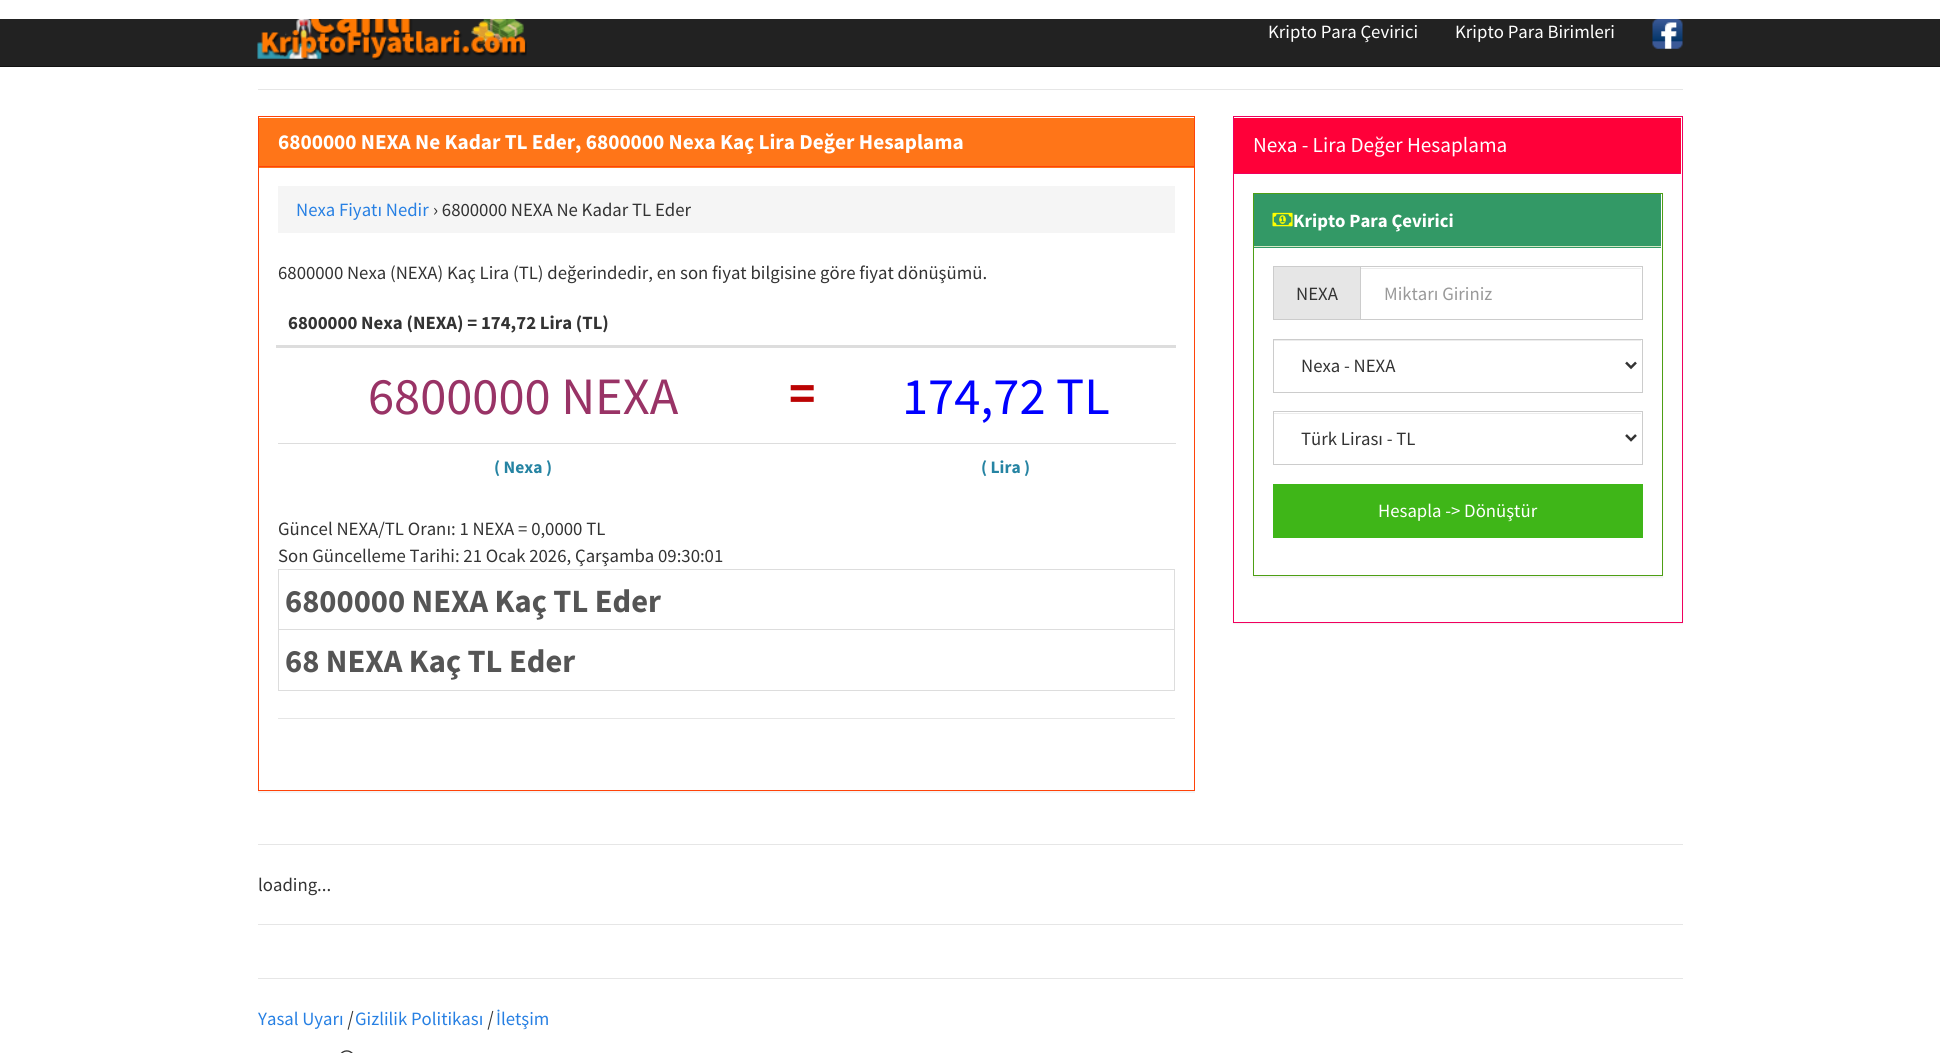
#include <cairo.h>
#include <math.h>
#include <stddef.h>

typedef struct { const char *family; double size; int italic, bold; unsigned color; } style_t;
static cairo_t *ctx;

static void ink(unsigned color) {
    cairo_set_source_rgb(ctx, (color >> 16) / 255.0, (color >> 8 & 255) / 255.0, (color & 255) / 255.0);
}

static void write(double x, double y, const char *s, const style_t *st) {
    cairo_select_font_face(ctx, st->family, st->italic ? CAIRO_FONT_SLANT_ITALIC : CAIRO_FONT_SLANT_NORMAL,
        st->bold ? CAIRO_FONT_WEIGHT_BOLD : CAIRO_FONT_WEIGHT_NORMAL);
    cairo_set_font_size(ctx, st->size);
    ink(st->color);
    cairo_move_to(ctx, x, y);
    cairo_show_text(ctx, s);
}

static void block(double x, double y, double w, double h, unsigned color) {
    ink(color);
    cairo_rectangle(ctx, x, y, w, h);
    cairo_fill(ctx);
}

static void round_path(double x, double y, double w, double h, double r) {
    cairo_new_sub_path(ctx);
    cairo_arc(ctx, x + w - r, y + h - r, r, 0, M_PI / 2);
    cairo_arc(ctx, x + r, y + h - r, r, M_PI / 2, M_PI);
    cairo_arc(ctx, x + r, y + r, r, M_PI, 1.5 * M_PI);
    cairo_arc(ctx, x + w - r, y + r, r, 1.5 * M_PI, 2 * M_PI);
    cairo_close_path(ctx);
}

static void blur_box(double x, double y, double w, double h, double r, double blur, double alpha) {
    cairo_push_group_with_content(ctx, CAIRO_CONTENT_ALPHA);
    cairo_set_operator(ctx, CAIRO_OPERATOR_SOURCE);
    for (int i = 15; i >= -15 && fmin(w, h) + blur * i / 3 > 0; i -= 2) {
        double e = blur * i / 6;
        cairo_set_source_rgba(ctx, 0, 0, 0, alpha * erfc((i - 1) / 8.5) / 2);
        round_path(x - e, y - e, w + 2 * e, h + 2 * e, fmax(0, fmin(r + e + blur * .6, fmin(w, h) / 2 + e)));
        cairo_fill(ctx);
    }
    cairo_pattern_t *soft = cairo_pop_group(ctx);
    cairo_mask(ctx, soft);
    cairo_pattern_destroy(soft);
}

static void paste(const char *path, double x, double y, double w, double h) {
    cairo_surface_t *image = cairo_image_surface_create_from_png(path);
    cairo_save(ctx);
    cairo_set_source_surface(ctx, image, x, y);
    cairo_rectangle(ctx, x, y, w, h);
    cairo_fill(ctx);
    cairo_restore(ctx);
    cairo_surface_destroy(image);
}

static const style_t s1 = {"Source Sans Pro", 18.75, 0, 0, 0xffffff};
static const style_t s2 = {"Source Sans Pro", 21.25, 0, 1, 0xffffff};
static const style_t s3 = {"Source Sans Pro", 18.75, 0, 0, 0x2780e3};
static const style_t s4 = {"Source Sans Pro", 18.75, 0, 0, 0x333333};
static const style_t s5 = {"Source Sans Pro", 18.75, 0, 1, 0x333333};
static const style_t s6 = {"Source Sans Pro", 52.5, 0, 0, 0x993366};
static const style_t s7 = {"Source Sans Pro", 50, 0, 1, 0xbb0303};
static const style_t s8 = {"Source Sans Pro", 52.5, 0, 0, 0x0000ff};
static const style_t s9 = {"Source Sans Pro", 17.5, 0, 1, 0x2684a3};
static const style_t s10 = {"Source Sans Pro", 32.5, 0, 1, 0x555555};
static const style_t s11 = {"Source Sans Pro", 21.25, 0, 0, 0xffffff};
static const style_t s12 = {"Source Sans Pro", 18.75, 0, 1, 0xffffff};
static const style_t s13 = {"Source Sans Pro", 18.75, 0, 0, 0x999999};
static const style_t s14 = {"Source Sans Pro", 18.75, 1, 0, 0x333333};

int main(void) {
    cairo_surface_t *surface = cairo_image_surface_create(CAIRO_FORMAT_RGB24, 1940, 1053);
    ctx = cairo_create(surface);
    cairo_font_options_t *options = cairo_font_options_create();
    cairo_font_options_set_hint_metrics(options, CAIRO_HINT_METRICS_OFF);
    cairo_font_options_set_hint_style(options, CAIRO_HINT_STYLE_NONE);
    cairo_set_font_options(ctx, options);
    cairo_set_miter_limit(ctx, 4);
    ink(0xffffff);
    cairo_paint(ctx);
    block(0, 19, 1940, 47, 0x222222);
    block(0, 66, 1940, 1, 0x121212);
    paste("pic1.png", 257, 19, 270, 41);
    write(1268, 38, "Kripto Para Çevirici", &s1);
    write(1455, 38, "Kripto Para Birimleri", &s1);
    paste("pic2.png", 1652, 19, 31, 30);
    block(258, 89, 1425, 1, 0xe6e6e6);
    cairo_save(ctx);
    cairo_rectangle(ctx, 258, 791, 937, 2);
    cairo_clip(ctx);
    ink(0x000000);
    blur_box(258, 118, 937, 675, 0, 0.5, 0.05);
    cairo_restore(ctx);
    cairo_rectangle(ctx, 258.5, 116.5, 936, 674);
    ink(0xff4309);
    cairo_set_line_width(ctx, 1);
    cairo_stroke(ctx);
    block(259, 118, 935, 50, 0xff7518);
    block(259, 166, 935, 1, 0xff4309);
    write(278, 149, "6800000 NEXA Ne Kadar TL Eder, 6800000 Nexa Kaç Lira Değer Hesaplama", &s2);
    block(278, 186, 897, 47, 0xf5f5f5);
    write(296, 216, "Nexa Fiyatı Nedir", &s3);
    write(433, 216, "› 6800000 NEXA Ne Kadar TL Eder", &s4);
    write(278, 279, "6800000 Nexa (NEXA) Kaç Lira (TL) değerindedir, en son fiyat bilgisine göre fiyat dönüşümü.", &s4);
    block(276, 345, 900, 3, 0xdddddd);
    write(288, 329, "6800000 Nexa (NEXA) = 174,72 Lira (TL)", &s5);
    write(368, 414, "6800000 NEXA", &s6);
    write(789, 410, "=", &s7);
    write(902, 414, "174,72 TL", &s8);
    write(494, 473, "( Nexa )", &s9);
    block(278, 443, 898, 1, 0xdddddd);
    write(981, 473, "( Lira )", &s9);
    write(278, 535, "Güncel NEXA/TL Oranı: 1 NEXA = 0,0000 TL", &s4);
    write(278, 562, "Son Güncelleme Tarihi: 21 Ocak 2026, Çarşamba 09:30:01", &s4);
    cairo_rectangle(ctx, 278.5, 569.5, 896, 60);
    ink(0xdddddd);
    cairo_stroke(ctx);
    write(285, 612, "6800000 NEXA Kaç TL Eder", &s10);
    cairo_rectangle(ctx, 278.5, 629.5, 896, 61);
    ink(0xdddddd);
    cairo_stroke(ctx);
    write(285, 672, "68 NEXA Kaç TL Eder", &s10);
    block(278, 718, 897, 1, 0xe6e6e6);
    ink(0x000000);
    blur_box(1233, 118, 450, 506, 0, 0.5, 0.05);
    block(1234, 118, 448, 504, 0xffffff);
    cairo_rectangle(ctx, 1233.5, 116.5, 449, 506);
    ink(0xf0005e);
    cairo_stroke(ctx);
    block(1234, 118, 447, 55, 0xff0039);
    block(1234, 173, 447, 1, 0xf0005e);
    write(1253, 152, "Nexa - Lira Değer Hesaplama", &s11);
    ink(0x000000);
    blur_box(1253, 194, 410, 384, 0, 0.5, 0.05);
    ink(0xffffff);
    cairo_rectangle(ctx, 1253.5, 193.5, 409, 382);
    cairo_fill_preserve(ctx);
    ink(0x4e9f15);
    cairo_stroke(ctx);
    block(1254, 194, 407, 54, 0x339966);
    block(1254, 246, 407, 1, 0xd6e9c6);
    paste("pic3.png", 1272, 212, 21, 15);
    write(1293, 227, "Kripto Para Çevirici", &s12);
    block(1274, 267, 86, 52, 0xe6e6e6);
    block(1273, 266, 87, 1, 0xcccccc);
    block(1273, 319, 87, 1, 0xcccccc);
    block(1273, 266, 1, 54, 0xcccccc);
    write(1296, 300, "NEXA", &s4);
    block(1361, 268, 280, 1, 0xececec);
    cairo_rectangle(ctx, 1360.5, 266.5, 282, 53);
    ink(0xcccccc);
    cairo_stroke(ctx);
    write(1384, 300, "Miktarı Giriniz", &s13);
    block(1274, 340, 367, 1, 0xececec);
    cairo_rectangle(ctx, 1273.5, 339.5, 369, 53);
    ink(0xcccccc);
    cairo_stroke(ctx);
    cairo_new_path(ctx);
    cairo_move_to(ctx, 1626, 362.5);
    cairo_line_to(ctx, 1631, 367.5);
    cairo_line_to(ctx, 1636, 362.5);
    ink(0x333333);
    cairo_set_line_width(ctx, 2.5);
    cairo_stroke(ctx);
    write(1301, 372, "Nexa - NEXA", &s4);
    block(1274, 413, 367, 1, 0xececec);
    cairo_rectangle(ctx, 1273.5, 411.5, 369, 53);
    ink(0xcccccc);
    cairo_set_line_width(ctx, 1);
    cairo_stroke(ctx);
    cairo_new_path(ctx);
    cairo_move_to(ctx, 1626, 435);
    cairo_line_to(ctx, 1631, 440);
    cairo_line_to(ctx, 1636, 435);
    ink(0x333333);
    cairo_set_line_width(ctx, 2.5);
    cairo_stroke(ctx);
    write(1301, 445, "Türk Lirası - TL", &s4);
    block(1273, 484, 370, 54, 0x3fb618);
    write(1378, 517, "Hesapla -> Dönüştür", &s1);
    block(258, 844, 1425, 1, 0xe6e6e6);
    write(258, 891, "loading...", &s4);
    block(258, 924, 1425, 1, 0xe6e6e6);
    block(258, 978, 1425, 1, 0xe6e6e6);
    write(258, 1025, "Yasal Uyarı", &s3);
    write(347, 1025, "|", &s14);
    write(355, 1025, "Gizlilik Politikası", &s3);
    write(487, 1025, "|", &s14);
    write(496, 1025, "İletşim", &s3);
    paste("pic4.png", 340, 1050, 13, 3);
    cairo_surface_write_to_png(surface, "screenshot.png");
    cairo_font_options_destroy(options);
    cairo_destroy(ctx);
    cairo_surface_destroy(surface);
    return 0;
}
